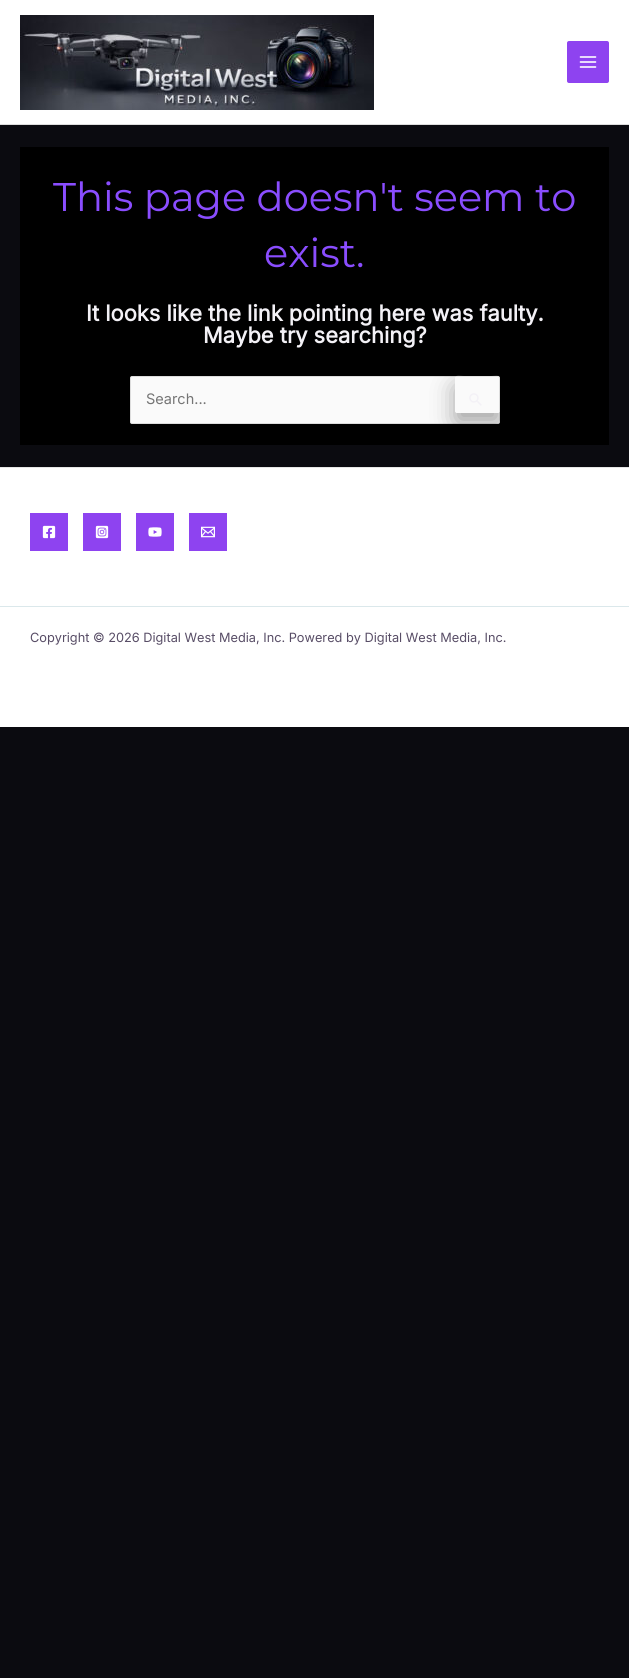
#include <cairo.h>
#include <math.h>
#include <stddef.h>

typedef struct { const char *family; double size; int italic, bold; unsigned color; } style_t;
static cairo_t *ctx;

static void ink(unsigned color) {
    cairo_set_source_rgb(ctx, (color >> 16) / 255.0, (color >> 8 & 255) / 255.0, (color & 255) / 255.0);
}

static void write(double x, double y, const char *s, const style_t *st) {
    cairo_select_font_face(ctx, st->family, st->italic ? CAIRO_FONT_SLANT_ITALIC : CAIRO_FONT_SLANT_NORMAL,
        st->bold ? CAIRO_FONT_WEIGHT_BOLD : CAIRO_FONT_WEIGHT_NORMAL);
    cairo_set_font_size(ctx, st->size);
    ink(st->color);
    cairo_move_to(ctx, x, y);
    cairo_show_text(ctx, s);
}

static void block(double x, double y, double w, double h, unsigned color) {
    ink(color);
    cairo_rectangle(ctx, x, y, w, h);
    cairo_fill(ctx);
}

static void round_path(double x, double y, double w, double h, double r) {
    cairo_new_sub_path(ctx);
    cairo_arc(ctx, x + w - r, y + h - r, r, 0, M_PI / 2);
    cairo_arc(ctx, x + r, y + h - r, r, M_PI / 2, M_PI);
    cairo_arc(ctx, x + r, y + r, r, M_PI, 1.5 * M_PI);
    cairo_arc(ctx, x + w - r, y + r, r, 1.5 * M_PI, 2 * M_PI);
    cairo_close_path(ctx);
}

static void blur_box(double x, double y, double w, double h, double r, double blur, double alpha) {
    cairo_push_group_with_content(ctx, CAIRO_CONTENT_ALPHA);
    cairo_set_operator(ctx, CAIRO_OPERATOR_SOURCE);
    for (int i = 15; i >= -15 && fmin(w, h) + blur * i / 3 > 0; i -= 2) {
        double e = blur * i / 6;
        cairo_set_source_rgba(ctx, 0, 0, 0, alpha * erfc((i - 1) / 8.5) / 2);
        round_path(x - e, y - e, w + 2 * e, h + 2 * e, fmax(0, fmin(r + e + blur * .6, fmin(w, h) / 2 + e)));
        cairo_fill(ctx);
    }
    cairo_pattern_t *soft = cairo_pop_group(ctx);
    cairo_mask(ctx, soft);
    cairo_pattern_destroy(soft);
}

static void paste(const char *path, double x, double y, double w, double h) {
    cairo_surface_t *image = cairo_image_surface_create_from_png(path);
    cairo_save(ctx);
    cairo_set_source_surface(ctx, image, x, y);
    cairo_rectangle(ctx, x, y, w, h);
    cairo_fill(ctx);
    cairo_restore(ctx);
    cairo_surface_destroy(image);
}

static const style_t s1 = {"Montserrat", 40, 0, 0, 0x8a4dff};
static const style_t s2 = {"Inter", 21.9, 0, 1, 0xf3f1f6};
static const style_t s3 = {"Inter", 14.5, 0, 0, 0x757575};
static const style_t s4 = {"Inter", 12.75, 0, 0, 0x584d66};

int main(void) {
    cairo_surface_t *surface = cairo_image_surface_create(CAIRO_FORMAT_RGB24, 629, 1678);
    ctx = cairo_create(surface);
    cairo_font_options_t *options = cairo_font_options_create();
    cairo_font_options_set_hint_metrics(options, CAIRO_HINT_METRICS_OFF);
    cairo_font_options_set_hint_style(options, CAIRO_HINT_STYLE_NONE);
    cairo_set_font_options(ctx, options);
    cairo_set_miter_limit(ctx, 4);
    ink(0x0b0b10);
    cairo_paint(ctx);
    block(0, 0, 629, 124, 0xffffff);
    block(0, 124, 629, 1, 0xdddddd);
    paste("pic1.png", 20, 15, 354, 95);
    ink(0x8e43f0);
    round_path(567, 41, 42, 42, 2);
    cairo_fill(ctx);
    paste("pic2.png", 579, 56, 18, 12);
    block(20, 147, 589, 298, 0x000000);
    write(53, 211, "This page doesn't seem to", &s1);
    write(264, 267, "exist.", &s1);
    write(86, 321, "It looks like the link pointing here was faulty.", &s2);
    write(203, 343, "Maybe try searching?", &s2);
    ink(0xfafafa);
    round_path(130.5, 376.5, 369, 47, 1.5);
    cairo_fill_preserve(ctx);
    ink(0xdddddd);
    cairo_set_line_width(ctx, 1);
    cairo_stroke(ctx);
    write(146, 404, "Search...", &s3);
    paste("pic3.png", 469, 393, 13, 13);
    cairo_save(ctx);
    cairo_set_fill_rule(ctx, CAIRO_FILL_RULE_EVEN_ODD);
    cairo_new_path(ctx);
    cairo_move_to(ctx, 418, 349);
    cairo_line_to(ctx, 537, 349);
    cairo_line_to(ctx, 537, 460);
    cairo_line_to(ctx, 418, 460);
    cairo_close_path(ctx);
    cairo_move_to(ctx, 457, 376);
    cairo_line_to(ctx, 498, 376);
    cairo_curve_to(ctx, 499, 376, 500, 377, 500, 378);
    cairo_line_to(ctx, 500, 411);
    cairo_curve_to(ctx, 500, 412, 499, 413, 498, 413);
    cairo_line_to(ctx, 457, 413);
    cairo_curve_to(ctx, 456, 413, 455, 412, 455, 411);
    cairo_line_to(ctx, 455, 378);
    cairo_curve_to(ctx, 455, 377, 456, 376, 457, 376);
    cairo_close_path(ctx);
    cairo_clip(ctx);
    ink(0x000000);
    blur_box(455, 386, 45, 37, 2, 12, 0.35);
    cairo_restore(ctx);
    cairo_set_source_rgba(ctx, 1, 1, 1, 0.22);
    cairo_new_path(ctx);
    cairo_move_to(ctx, 457, 377);
    cairo_line_to(ctx, 498, 377);
    cairo_curve_to(ctx, 499, 377, 500, 378, 500, 379);
    cairo_curve_to(ctx, 500, 374, 495, 376, 491, 376);
    cairo_line_to(ctx, 464, 376);
    cairo_curve_to(ctx, 460, 376, 455, 374, 455, 379);
    cairo_curve_to(ctx, 455, 378, 456, 377, 457, 377);
    cairo_close_path(ctx);
    cairo_fill(ctx);
    block(0, 468, 629, 138, 0xffffff);
    block(0, 467, 629, 1, 0xe6e6e6);
    block(30, 513, 38, 38, 0x8e43f0);
    paste("pic4.png", 42, 525, 14, 14);
    block(83, 513, 38, 38, 0x8e43f0);
    paste("pic5.png", 95, 525, 14, 14);
    block(136, 513, 38, 38, 0x8e43f0);
    paste("pic6.png", 148, 527, 14, 10);
    block(189, 513, 38, 38, 0x8e43f0);
    paste("pic7.png", 201, 526, 14, 12);
    block(0, 607, 629, 120, 0xffffff);
    block(0, 606, 629, 1, 0xdbe8eb);
    write(30, 642, "Copyright © 2026 Digital West Media, Inc. Powered by Digital West Media, Inc.", &s4);
    cairo_surface_write_to_png(surface, "screenshot.png");
    cairo_font_options_destroy(options);
    cairo_destroy(ctx);
    cairo_surface_destroy(surface);
    return 0;
}
